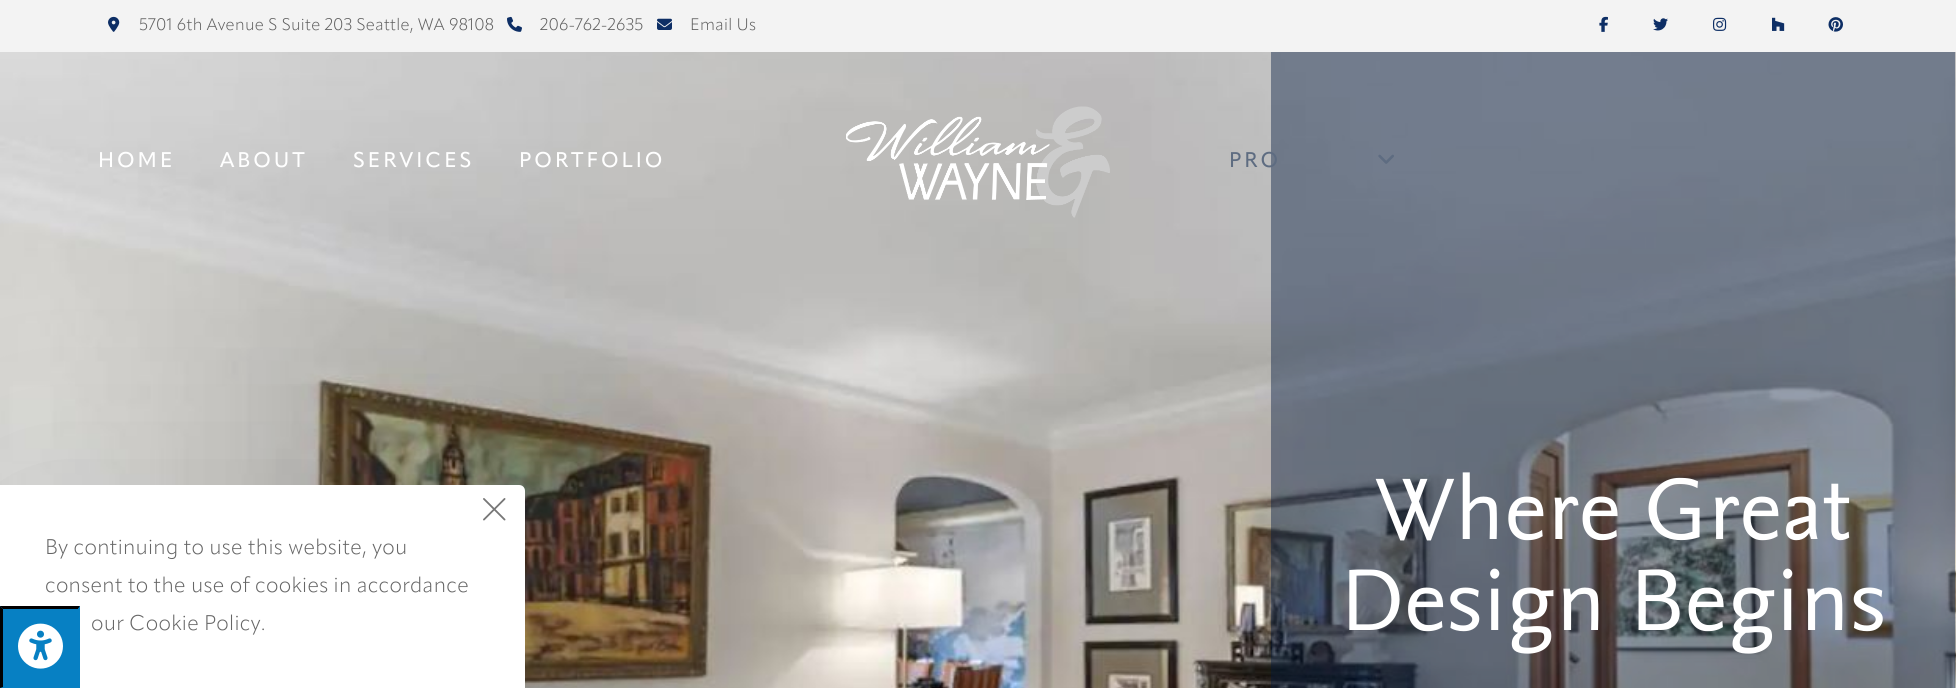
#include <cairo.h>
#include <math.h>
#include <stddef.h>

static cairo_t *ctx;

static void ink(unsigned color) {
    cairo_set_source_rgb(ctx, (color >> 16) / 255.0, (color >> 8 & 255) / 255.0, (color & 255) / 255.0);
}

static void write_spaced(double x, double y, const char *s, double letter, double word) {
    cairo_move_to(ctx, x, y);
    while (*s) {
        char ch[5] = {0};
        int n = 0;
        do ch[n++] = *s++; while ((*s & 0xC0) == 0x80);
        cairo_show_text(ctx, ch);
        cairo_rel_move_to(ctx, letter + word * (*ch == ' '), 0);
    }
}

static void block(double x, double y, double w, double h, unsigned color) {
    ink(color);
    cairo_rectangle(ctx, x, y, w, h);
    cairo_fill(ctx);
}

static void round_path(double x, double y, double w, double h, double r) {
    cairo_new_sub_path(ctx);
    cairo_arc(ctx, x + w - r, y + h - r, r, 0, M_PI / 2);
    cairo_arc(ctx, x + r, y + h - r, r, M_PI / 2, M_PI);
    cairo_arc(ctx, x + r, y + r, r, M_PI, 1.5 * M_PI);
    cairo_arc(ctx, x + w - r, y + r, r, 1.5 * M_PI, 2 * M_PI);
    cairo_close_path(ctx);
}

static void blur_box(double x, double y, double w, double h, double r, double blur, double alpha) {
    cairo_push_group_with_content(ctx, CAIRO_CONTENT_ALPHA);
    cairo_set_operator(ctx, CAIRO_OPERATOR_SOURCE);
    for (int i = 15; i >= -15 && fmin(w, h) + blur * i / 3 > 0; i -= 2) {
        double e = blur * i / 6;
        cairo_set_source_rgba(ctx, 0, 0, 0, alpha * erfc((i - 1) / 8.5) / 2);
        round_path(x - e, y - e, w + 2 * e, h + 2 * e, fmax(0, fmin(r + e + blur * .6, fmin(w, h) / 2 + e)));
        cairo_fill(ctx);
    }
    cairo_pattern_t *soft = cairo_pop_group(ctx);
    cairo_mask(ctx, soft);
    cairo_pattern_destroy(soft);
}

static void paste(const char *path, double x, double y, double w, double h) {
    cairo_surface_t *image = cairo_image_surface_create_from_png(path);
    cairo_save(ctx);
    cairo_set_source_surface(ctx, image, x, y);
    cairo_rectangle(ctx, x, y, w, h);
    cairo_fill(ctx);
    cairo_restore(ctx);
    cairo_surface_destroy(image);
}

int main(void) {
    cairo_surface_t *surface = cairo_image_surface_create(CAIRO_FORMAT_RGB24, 1956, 688);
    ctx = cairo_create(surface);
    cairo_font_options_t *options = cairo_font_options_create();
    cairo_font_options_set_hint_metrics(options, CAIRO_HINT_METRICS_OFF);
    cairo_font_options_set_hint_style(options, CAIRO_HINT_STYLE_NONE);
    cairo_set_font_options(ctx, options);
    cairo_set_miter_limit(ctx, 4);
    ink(0xffffff);
    cairo_paint(ctx);
    block(0, 0, 1956, 52, 0xf3f3f3);
    paste("pic1.png", 108, 16, 12, 16);
    cairo_select_font_face(ctx, "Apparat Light", CAIRO_FONT_SLANT_NORMAL, CAIRO_FONT_WEIGHT_NORMAL);
    cairo_set_font_size(ctx, 16.5);
    ink(0x5e5e5e);
    write_spaced(139, 30, "5701 6th Avenue S Suite 203 Seattle, WA 98108", 0.3, 0);
    paste("pic2.png", 507, 16, 15, 16);
    write_spaced(540, 30, "206-762-2635", 0.3, 0);
    paste("pic3.png", 657, 18, 15, 12);
    write_spaced(690, 30, "Email Us", 0.3, 0);
    paste("pic4.png", 1599, 16, 9, 16);
    paste("pic5.png", 1653, 18, 15, 13);
    paste("pic6.png", 1713, 17, 14, 14);
    paste("pic7.png", 1772, 17, 13, 14);
    paste("pic8.png", 1828, 17, 15, 15);
    paste("pic11.png", 0, 52, 1956, 636);
    cairo_select_font_face(ctx, "Apparat Medium", CAIRO_FONT_SLANT_NORMAL, CAIRO_FONT_WEIGHT_NORMAL);
    cairo_set_font_size(ctx, 21);
    ink(0xffffff);
    write_spaced(98, 167, "HOME", 3, 0);
    write_spaced(220, 167, "ABOUT", 3, 0);
    write_spaced(353, 167, "SERVICES", 3, 0);
    write_spaced(519, 167, "PORTFOLIO", 3, 0);
    paste("pic9.png", 846, 106, 264, 112);
    cairo_set_source_rgba(ctx, 0.004, 0.094, 0.243, 0.42);
    cairo_rectangle(ctx, 1271, 52, 684, 636);
    cairo_fill(ctx);
    ink(0x5e6c81);
    write_spaced(1229, 167, "PRO", 3, 0);
    paste("pic10.png", 1378, 154, 16, 10);
    cairo_select_font_face(ctx, "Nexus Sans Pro", CAIRO_FONT_SLANT_NORMAL, CAIRO_FONT_WEIGHT_NORMAL);
    cairo_set_font_size(ctx, 91.25);
    ink(0xffffff);
    write_spaced(1375, 539, "Where Great", 0.3, 0);
    write_spaced(1340, 630, "Design Begins", 0.3, 0);
    ink(0x000000);
    blur_box(0, 515, 525, 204, 6, 112.5, 0.1);
    ink(0xffffff);
    cairo_new_path(ctx);
    cairo_move_to(ctx, 0, 485);
    cairo_line_to(ctx, 519, 485);
    cairo_curve_to(ctx, 522.5, 485, 525, 487.5, 525, 491);
    cairo_line_to(ctx, 525, 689);
    cairo_line_to(ctx, 0, 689);
    cairo_close_path(ctx);
    cairo_fill(ctx);
    paste("pic12.png", 483, 498, 23, 23);
    cairo_select_font_face(ctx, "Apparat Light", CAIRO_FONT_SLANT_NORMAL, CAIRO_FONT_WEIGHT_NORMAL);
    cairo_set_font_size(ctx, 21);
    ink(0x666666);
    write_spaced(45, 554, "By continuing to use this website, you", 0.3, 0);
    write_spaced(45, 592, "consent to the use of cookies in accordance", 0.3, 0);
    write_spaced(91, 630, "our Cookie Policy.", 0.3, 0);
    block(0, 606, 80, 82, 0x0780c3);
    ink(0x000000);
    cairo_new_path(ctx);
    cairo_move_to(ctx, 0, 606);
    cairo_line_to(ctx, 80, 606);
    cairo_line_to(ctx, 78, 609);
    cairo_line_to(ctx, 3, 609);
    cairo_close_path(ctx);
    cairo_fill(ctx);
    ink(0x0780c3);
    cairo_new_path(ctx);
    cairo_move_to(ctx, 80, 606);
    cairo_line_to(ctx, 80, 688);
    cairo_line_to(ctx, 78, 687);
    cairo_line_to(ctx, 78, 609);
    cairo_close_path(ctx);
    cairo_fill(ctx);
    ink(0x000000);
    cairo_new_path(ctx);
    cairo_move_to(ctx, 0, 688);
    cairo_line_to(ctx, 0, 606);
    cairo_line_to(ctx, 3, 609);
    cairo_line_to(ctx, 3, 687);
    cairo_close_path(ctx);
    cairo_fill(ctx);
    paste("pic13.png", 18, 623, 45, 46);
    cairo_surface_write_to_png(surface, "screenshot.png");
    cairo_font_options_destroy(options);
    cairo_destroy(ctx);
    cairo_surface_destroy(surface);
    return 0;
}
